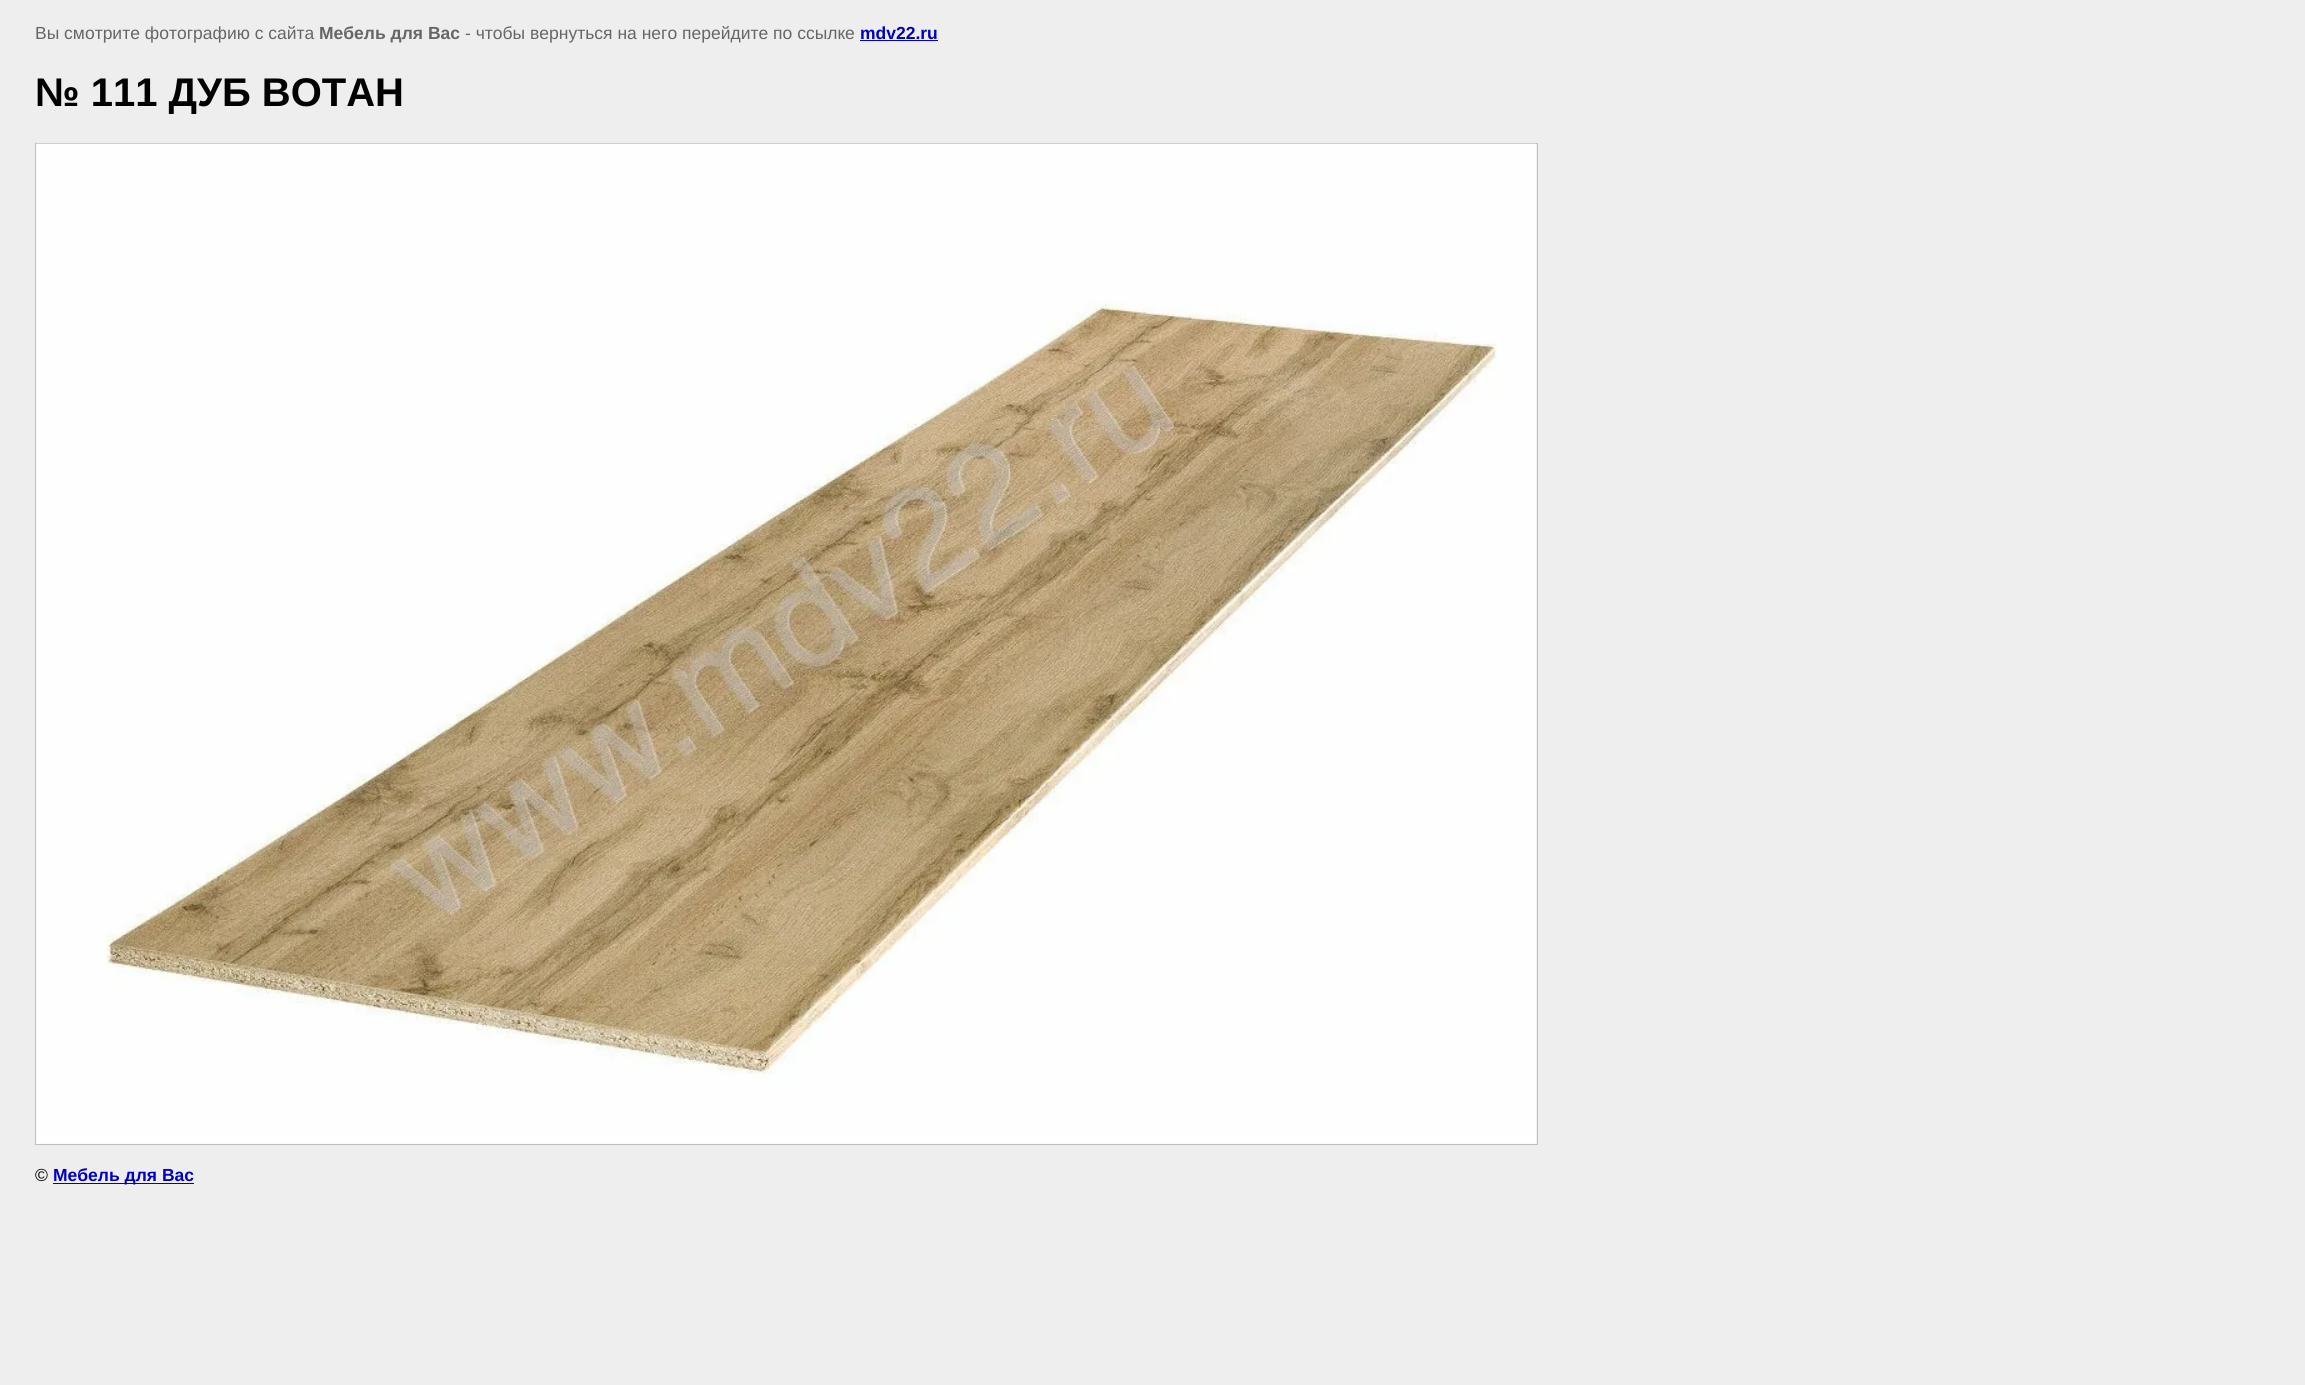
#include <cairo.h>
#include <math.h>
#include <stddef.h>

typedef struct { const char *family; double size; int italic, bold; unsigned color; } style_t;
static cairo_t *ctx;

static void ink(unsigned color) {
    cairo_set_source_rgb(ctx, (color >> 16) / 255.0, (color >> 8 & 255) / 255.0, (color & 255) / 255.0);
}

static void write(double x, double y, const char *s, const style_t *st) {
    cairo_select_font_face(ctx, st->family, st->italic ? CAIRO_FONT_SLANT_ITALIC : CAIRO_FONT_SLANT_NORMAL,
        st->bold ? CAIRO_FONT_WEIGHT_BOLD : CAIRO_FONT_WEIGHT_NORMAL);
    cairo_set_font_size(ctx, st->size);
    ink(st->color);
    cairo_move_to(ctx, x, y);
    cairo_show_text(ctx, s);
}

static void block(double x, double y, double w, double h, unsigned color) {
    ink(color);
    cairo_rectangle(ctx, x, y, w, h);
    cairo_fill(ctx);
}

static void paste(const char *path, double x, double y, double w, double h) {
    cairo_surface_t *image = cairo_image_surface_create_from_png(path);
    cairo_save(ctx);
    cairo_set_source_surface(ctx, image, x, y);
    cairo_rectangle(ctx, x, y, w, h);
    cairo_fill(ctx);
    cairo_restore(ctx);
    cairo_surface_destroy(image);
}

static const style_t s1 = {"Liberation Sans", 17.5, 0, 0, 0x666666};
static const style_t s2 = {"Liberation Sans", 17.5, 0, 1, 0x666666};
static const style_t s3 = {"Liberation Sans", 17.5, 0, 1, 0x0000cc};
static const style_t s4 = {"Liberation Sans", 40, 0, 1, 0x000000};
static const style_t s5 = {"Liberation Sans", 17.5, 0, 0, 0x000000};

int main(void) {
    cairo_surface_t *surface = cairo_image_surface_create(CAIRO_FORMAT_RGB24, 2305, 1385);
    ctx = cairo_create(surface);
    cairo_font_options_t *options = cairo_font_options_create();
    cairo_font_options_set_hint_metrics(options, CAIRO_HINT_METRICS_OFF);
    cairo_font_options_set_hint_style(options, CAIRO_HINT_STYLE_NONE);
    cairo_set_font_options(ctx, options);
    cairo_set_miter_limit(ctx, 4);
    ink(0xeeeeee);
    cairo_paint(ctx);
    write(35, 39, "Вы смотрите фотографию с сайта", &s1);
    write(319, 39, "Мебель для Вас", &s2);
    write(465, 39, "- чтобы вернуться на него перейдите по ссылке", &s1);
    write(860, 39, "mdv22.ru", &s3);
    block(860, 40, 78, 1, 0x0000cc);
    write(35, 106, "№ 111 ДУБ ВОТАН", &s4);
    cairo_rectangle(ctx, 35.5, 143.5, 1502, 1001);
    ink(0xc0c0c0);
    cairo_set_line_width(ctx, 1);
    cairo_stroke(ctx);
    paste("pic1.png", 36, 143, 1501, 1001);
    write(35, 1181, "©", &s5);
    block(53, 1183, 141, 1, 0x0000cc);
    write(53, 1181, "Мебель для Вас", &s3);
    cairo_surface_write_to_png(surface, "screenshot.png");
    cairo_font_options_destroy(options);
    cairo_destroy(ctx);
    cairo_surface_destroy(surface);
    return 0;
}
